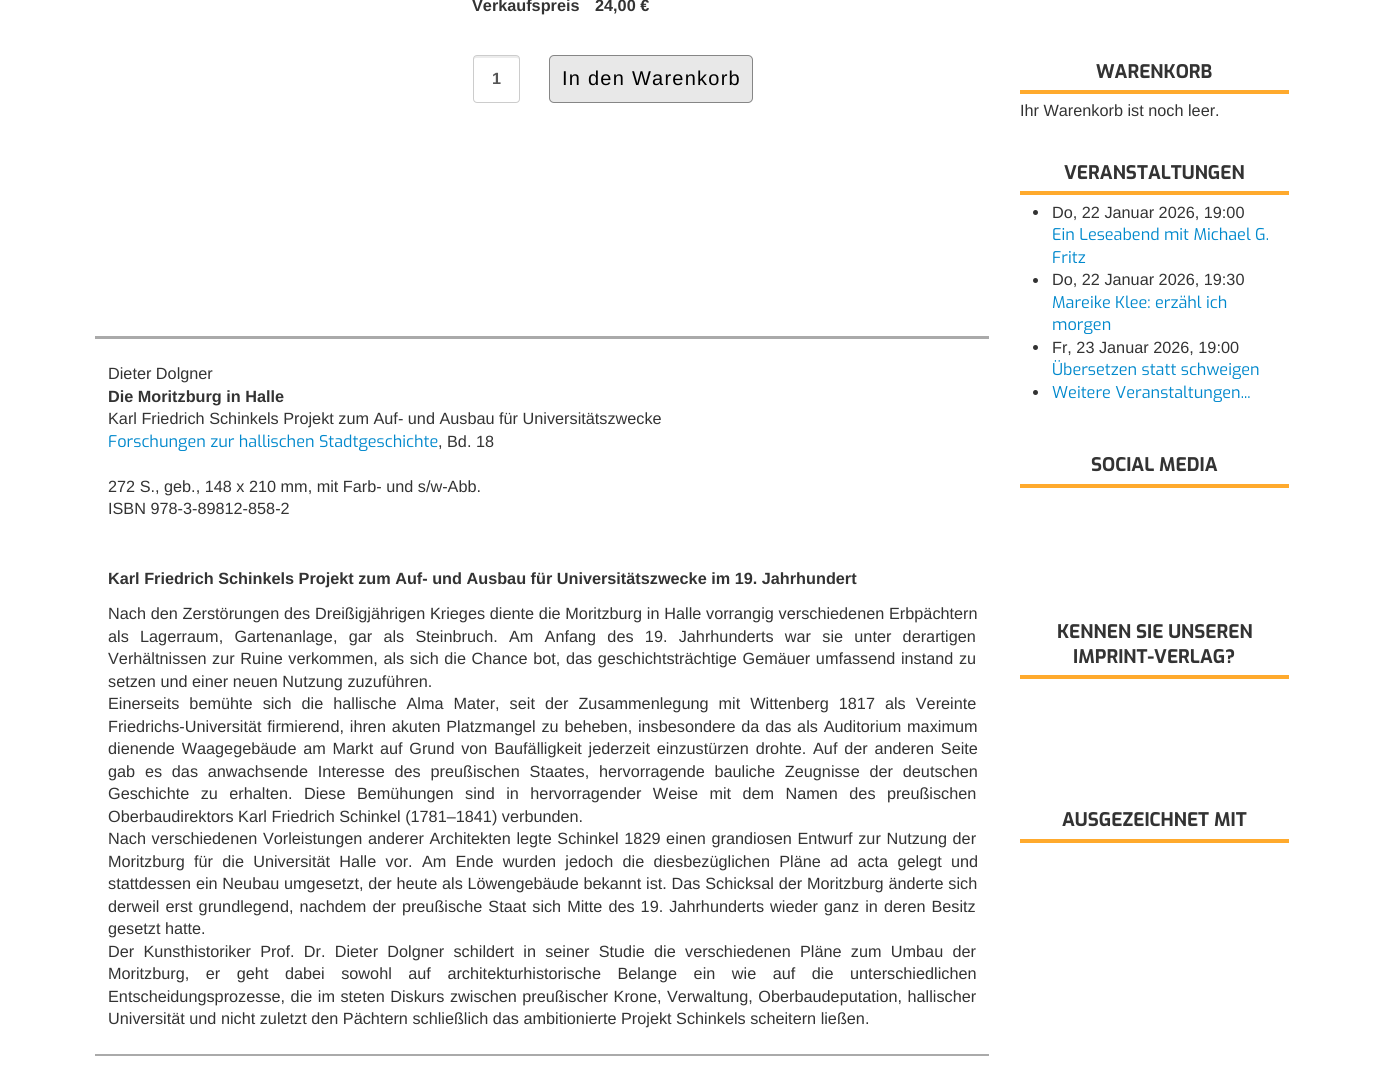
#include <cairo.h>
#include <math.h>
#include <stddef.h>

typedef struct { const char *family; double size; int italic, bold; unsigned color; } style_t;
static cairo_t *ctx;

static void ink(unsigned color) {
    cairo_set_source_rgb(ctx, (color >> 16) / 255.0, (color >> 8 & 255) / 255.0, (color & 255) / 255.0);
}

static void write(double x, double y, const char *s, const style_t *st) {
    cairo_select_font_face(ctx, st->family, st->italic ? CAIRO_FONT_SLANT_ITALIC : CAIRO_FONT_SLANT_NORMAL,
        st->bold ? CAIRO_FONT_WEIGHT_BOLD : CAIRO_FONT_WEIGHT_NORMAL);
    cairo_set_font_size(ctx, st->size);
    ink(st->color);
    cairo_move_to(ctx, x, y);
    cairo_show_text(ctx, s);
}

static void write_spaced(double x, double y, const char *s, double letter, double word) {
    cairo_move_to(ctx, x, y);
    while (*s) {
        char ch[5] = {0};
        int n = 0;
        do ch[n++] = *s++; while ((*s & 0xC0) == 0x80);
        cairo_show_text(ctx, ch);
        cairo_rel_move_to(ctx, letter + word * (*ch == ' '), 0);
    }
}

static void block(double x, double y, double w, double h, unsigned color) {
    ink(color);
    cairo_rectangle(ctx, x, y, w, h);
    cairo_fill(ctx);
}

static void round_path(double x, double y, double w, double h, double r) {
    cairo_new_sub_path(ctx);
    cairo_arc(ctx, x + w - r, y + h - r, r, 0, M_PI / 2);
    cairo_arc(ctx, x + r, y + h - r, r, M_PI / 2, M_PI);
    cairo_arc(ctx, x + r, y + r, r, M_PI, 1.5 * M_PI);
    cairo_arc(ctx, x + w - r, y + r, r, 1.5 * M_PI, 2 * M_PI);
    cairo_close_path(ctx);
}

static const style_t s1 = {"Liberation Sans", 16.25, 0, 1, 0x333333};
static const style_t s2 = {"Liberation Sans", 16.25, 0, 1, 0x555555};
static const style_t s3 = {"Liberation Sans", 16.25, 0, 0, 0x333333};
static const style_t s4 = {"Exo", 16.25, 0, 0, 0x0088cc};
static const style_t s5 = {"Exo", 18.75, 0, 1, 0x333333};

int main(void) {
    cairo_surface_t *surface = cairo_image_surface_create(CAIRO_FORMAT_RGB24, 1390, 1091);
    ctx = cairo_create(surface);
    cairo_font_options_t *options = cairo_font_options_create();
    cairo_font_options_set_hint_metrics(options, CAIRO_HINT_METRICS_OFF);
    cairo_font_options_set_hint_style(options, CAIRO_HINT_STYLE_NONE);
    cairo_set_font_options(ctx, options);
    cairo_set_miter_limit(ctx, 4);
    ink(0xffffff);
    cairo_paint(ctx);
    write(472, 11, "Verkaufspreis", &s1);
    write(595, 11, "24,00 €", &s1);
    ink(0xececec);
    cairo_new_path(ctx);
    cairo_move_to(ctx, 476, 58);
    cairo_line_to(ctx, 516, 58);
    cairo_curve_to(ctx, 518, 58, 519, 59, 519, 60);
    cairo_curve_to(ctx, 519, 54, 515, 56, 510, 56);
    cairo_line_to(ctx, 483, 56);
    cairo_curve_to(ctx, 478, 56, 474, 54, 474, 60);
    cairo_curve_to(ctx, 474, 59, 475, 58, 476, 58);
    cairo_close_path(ctx);
    cairo_fill(ctx);
    round_path(473.5, 55.5, 46, 47, 3.5);
    ink(0xcccccc);
    cairo_set_line_width(ctx, 1);
    cairo_stroke(ctx);
    write(492, 84, "1", &s2);
    ink(0xe8e8e8);
    round_path(549.5, 55.5, 203, 47, 4.5);
    cairo_fill_preserve(ctx);
    ink(0x868686);
    cairo_stroke(ctx);
    cairo_select_font_face(ctx, "Liberation Sans", CAIRO_FONT_SLANT_NORMAL, CAIRO_FONT_WEIGHT_NORMAL);
    cairo_set_font_size(ctx, 20);
    ink(0x000000);
    write_spaced(562, 85, "In den Warenkorb", 1.25, 0);
    block(95, 336, 894, 3, 0xaaaaaa);
    write(108, 379, "Dieter Dolgner", &s3);
    write(108, 402, "Die Moritzburg in Halle", &s1);
    write(108, 424, "Karl Friedrich Schinkels Projekt zum Auf- und Ausbau für Universitätszwecke", &s3);
    write(108, 447, "Forschungen zur hallischen Stadtgeschichte", &s4);
    write(438, 447, ", Bd. 18", &s3);
    write(108, 492, "272 S., geb., 148 x 210 mm, mit Farb- und s/w-Abb.", &s3);
    write(108, 514, "ISBN 978-3-89812-858-2", &s3);
    write(108, 584, "Karl Friedrich Schinkels Projekt zum Auf- und Ausbau für Universitätszwecke im 19. Jahrhundert", &s1);
    cairo_select_font_face(ctx, "Liberation Sans", CAIRO_FONT_SLANT_NORMAL, CAIRO_FONT_WEIGHT_NORMAL);
    write_spaced(108, 619, "Nach den Zerstörungen des Dreißigjährigen Krieges diente die Moritzburg in Halle vorrangig verschiedenen Erbpächtern", 0, 0.25);
    write_spaced(108, 642, "als Lagerraum, Gartenanlage, gar als Steinbruch. Am Anfang des 19. Jahrhunderts war sie unter derartigen", 0, 6.75);
    write_spaced(108, 664, "Verhältnissen zur Ruine verkommen, als sich die Chance bot, das geschichtsträchtige Gemäuer umfassend instand zu", 0, 1.1);
    write(108, 687, "setzen und einer neuen Nutzung zuzuführen.", &s3);
    write_spaced(108, 709, "Einerseits bemühte sich die hallische Alma Mater, seit der Zusammenlegung mit Wittenberg 1817 als Vereinte", 0, 5.5);
    write_spaced(108, 732, "Friedrichs-Universität firmierend, ihren akuten Platzmangel zu beheben, insbesondere da das als Auditorium maximum", 0, 1.25);
    write_spaced(108, 754, "dienende Waagegebäude am Markt auf Grund von Baufälligkeit jederzeit einzustürzen drohte. Auf der anderen Seite", 0, 2.25);
    write_spaced(108, 777, "gab es das anwachsende Interesse des preußischen Staates, hervorragende bauliche Zeugnisse der deutschen", 0, 5.25);
    write_spaced(108, 799, "Geschichte zu erhalten. Diese Bemühungen sind in hervorragender Weise mit dem Namen des preußischen", 0, 6.9);
    write(108, 822, "Oberbaudirektors Karl Friedrich Schinkel (1781–1841) verbunden.", &s3);
    write_spaced(108, 844, "Nach verschiedenen Vorleistungen anderer Architekten legte Schinkel 1829 einen grandiosen Entwurf zur Nutzung der", 0, 1.1);
    write_spaced(108, 867, "Moritzburg für die Universität Halle vor. Am Ende wurden jedoch die diesbezüglichen Pläne ad acta gelegt und", 0, 4.75);
    write_spaced(108, 889, "stattdessen ein Neubau umgesetzt, der heute als Löwengebäude bekannt ist. Das Schicksal der Moritzburg änderte sich", 0, 0.25);
    write_spaced(108, 912, "derweil erst grundlegend, nachdem der preußische Staat sich Mitte des 19. Jahrhunderts wieder ganz in deren Besitz", 0, 1.5);
    write(108, 934, "gesetzt hatte.", &s3);
    write_spaced(108, 957, "Der Kunsthistoriker Prof. Dr. Dieter Dolgner schildert in seiner Studie die verschiedenen Pläne zum Umbau der", 0, 4.75);
    write_spaced(108, 979, "Moritzburg, er geht dabei sowohl auf architekturhistorische Belange ein wie auf die unterschiedlichen", 0, 12);
    write_spaced(108, 1002, "Entscheidungsprozesse, die im steten Diskurs zwischen preußischer Krone, Verwaltung, Oberbaudeputation, hallischer", 0, 1);
    write(108, 1024, "Universität und nicht zuletzt den Pächtern schließlich das ambitionierte Projekt Schinkels scheitern ließen.", &s3);
    block(95, 1054, 894, 2, 0xaaaaaa);
    block(1020, 90, 269, 4, 0xffaa2d);
    write(1096, 78, "WARENKORB", &s5);
    write(1020, 116, "Ihr Warenkorb ist noch leer.", &s3);
    block(1020, 191, 269, 4, 0xffaa2d);
    write(1064, 179, "VERANSTALTUNGEN", &s5);
    cairo_new_path(ctx);
    cairo_arc(ctx, 1035.5, 212.5, 2.5, 0, 2 * M_PI);
    cairo_fill(ctx);
    write(1052, 218, "Do, 22 Januar 2026, 19:00", &s3);
    write(1052, 240, "Ein Leseabend mit Michael G.", &s4);
    write(1052, 263, "Fritz", &s4);
    ink(0x333333);
    cairo_new_path(ctx);
    cairo_arc(ctx, 1035.5, 280.5, 2.5, 0, 2 * M_PI);
    cairo_fill(ctx);
    write(1052, 285, "Do, 22 Januar 2026, 19:30", &s3);
    write(1052, 308, "Mareike Klee: erzähl ich", &s4);
    write(1052, 330, "morgen", &s4);
    ink(0x333333);
    cairo_new_path(ctx);
    cairo_arc(ctx, 1035.5, 347.5, 2.5, 0, 2 * M_PI);
    cairo_fill(ctx);
    write(1052, 353, "Fr, 23 Januar 2026, 19:00", &s3);
    write(1052, 375, "Übersetzen statt schweigen", &s4);
    ink(0x333333);
    cairo_new_path(ctx);
    cairo_arc(ctx, 1035.5, 392.5, 2.5, 0, 2 * M_PI);
    cairo_fill(ctx);
    write(1052, 398, "Weitere Veranstaltungen...", &s4);
    block(1020, 484, 269, 4, 0xffaa2d);
    write(1091, 471, "SOCIAL MEDIA", &s5);
    block(1020, 675, 269, 4, 0xffaa2d);
    write(1057, 638, "KENNEN SIE UNSEREN", &s5);
    write(1073, 663, "IMPRINT-VERLAG?", &s5);
    block(1020, 839, 269, 4, 0xffaa2d);
    write(1062, 826, "AUSGEZEICHNET MIT", &s5);
    cairo_surface_write_to_png(surface, "screenshot.png");
    cairo_font_options_destroy(options);
    cairo_destroy(ctx);
    cairo_surface_destroy(surface);
    return 0;
}
